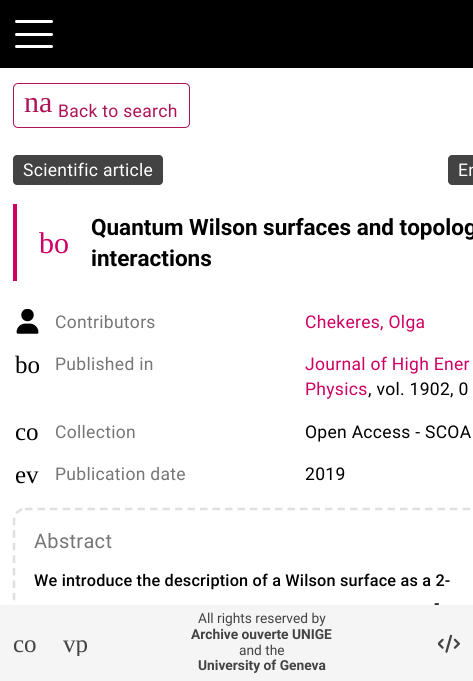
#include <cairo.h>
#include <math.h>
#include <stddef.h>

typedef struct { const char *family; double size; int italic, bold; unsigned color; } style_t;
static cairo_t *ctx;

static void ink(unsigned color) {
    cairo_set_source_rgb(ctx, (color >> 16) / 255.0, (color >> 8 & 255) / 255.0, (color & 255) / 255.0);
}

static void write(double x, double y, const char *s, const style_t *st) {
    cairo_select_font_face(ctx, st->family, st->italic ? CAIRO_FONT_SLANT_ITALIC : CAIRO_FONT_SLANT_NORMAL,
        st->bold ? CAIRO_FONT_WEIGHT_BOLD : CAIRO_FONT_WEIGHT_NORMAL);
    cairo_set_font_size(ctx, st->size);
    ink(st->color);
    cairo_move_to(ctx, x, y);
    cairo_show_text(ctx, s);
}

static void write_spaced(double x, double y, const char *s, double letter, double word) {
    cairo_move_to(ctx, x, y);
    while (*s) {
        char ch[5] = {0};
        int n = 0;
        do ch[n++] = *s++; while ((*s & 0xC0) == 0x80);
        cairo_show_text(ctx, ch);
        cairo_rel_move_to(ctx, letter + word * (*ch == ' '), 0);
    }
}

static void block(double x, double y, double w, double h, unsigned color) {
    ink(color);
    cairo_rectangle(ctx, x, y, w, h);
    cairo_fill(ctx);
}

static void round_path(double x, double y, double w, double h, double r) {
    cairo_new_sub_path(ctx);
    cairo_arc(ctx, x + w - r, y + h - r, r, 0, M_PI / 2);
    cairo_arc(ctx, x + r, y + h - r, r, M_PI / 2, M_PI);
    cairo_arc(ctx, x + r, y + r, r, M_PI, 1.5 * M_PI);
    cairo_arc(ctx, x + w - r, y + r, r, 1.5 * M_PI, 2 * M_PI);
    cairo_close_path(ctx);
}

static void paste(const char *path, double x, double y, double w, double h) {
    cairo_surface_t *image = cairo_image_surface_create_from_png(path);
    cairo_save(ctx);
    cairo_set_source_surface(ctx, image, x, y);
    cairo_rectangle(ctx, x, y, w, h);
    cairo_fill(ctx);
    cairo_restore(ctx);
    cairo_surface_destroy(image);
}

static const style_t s1 = {"Liberation Serif", 30, 0, 0, 0xad1457};
static const style_t s2 = {"Liberation Serif", 30, 0, 0, 0xcf0063};
static const style_t s3 = {"Roboto", 22.5, 0, 1, 0x000000};
static const style_t s4 = {"Liberation Serif", 25, 0, 0, 0x000000};
static const style_t s5 = {"Liberation Serif", 25, 0, 0, 0x434343};
static const style_t s6 = {"Roboto", 13.75, 0, 0, 0x434343};
static const style_t s7 = {"Roboto", 13.75, 0, 1, 0x434343};

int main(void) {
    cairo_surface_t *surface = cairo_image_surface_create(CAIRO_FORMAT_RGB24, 473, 681);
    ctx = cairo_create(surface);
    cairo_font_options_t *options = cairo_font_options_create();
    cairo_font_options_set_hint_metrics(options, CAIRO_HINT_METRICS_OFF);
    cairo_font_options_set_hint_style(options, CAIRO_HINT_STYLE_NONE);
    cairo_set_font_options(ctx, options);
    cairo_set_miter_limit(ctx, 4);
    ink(0xffffff);
    cairo_paint(ctx);
    block(0, 0, 473, 68, 0x000000);
    ink(0xffffff);
    round_path(15, 20, 38, 3, 1.5);
    cairo_fill(ctx);
    round_path(15, 33, 38, 3, 1.5);
    cairo_fill(ctx);
    round_path(15, 45, 38, 3, 1.5);
    cairo_fill(ctx);
    round_path(13.5, 83.5, 176, 44, 4.5);
    ink(0xad1457);
    cairo_set_line_width(ctx, 1);
    cairo_stroke(ctx);
    write(24, 112, "na", &s1);
    cairo_select_font_face(ctx, "Roboto", CAIRO_FONT_SLANT_NORMAL, CAIRO_FONT_WEIGHT_NORMAL);
    cairo_set_font_size(ctx, 17.5);
    write_spaced(58, 117, "Back to search", 0.3, 0);
    ink(0x434343);
    round_path(13, 155, 150, 30, 4);
    cairo_fill(ctx);
    ink(0xffffff);
    write_spaced(23, 176, "Scientific article", 0.3, 0);
    ink(0x434343);
    cairo_new_path(ctx);
    cairo_move_to(ctx, 452, 155);
    cairo_line_to(ctx, 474, 155);
    cairo_line_to(ctx, 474, 185);
    cairo_line_to(ctx, 452, 185);
    cairo_curve_to(ctx, 450, 185, 448, 183, 448, 181);
    cairo_line_to(ctx, 448, 159);
    cairo_curve_to(ctx, 448, 157, 450, 155, 452, 155);
    cairo_close_path(ctx);
    cairo_fill(ctx);
    ink(0xffffff);
    write_spaced(458, 176, "En", 0.3, 0);
    block(13, 204, 4, 77, 0xcf0063);
    write(39, 253, "bo", &s2);
    write(91, 235, "Quantum Wilson surfaces and topolog", &s3);
    write(91, 266, "interactions", &s3);
    paste("pic1.png", 16, 309, 23, 25);
    cairo_select_font_face(ctx, "Roboto", CAIRO_FONT_SLANT_NORMAL, CAIRO_FONT_WEIGHT_NORMAL);
    cairo_set_font_size(ctx, 17.5);
    ink(0x767676);
    write_spaced(55, 328, "Contributors", 0.3, 0);
    ink(0xcf0063);
    write_spaced(305, 328, "Chekeres, Olga", 0.3, 0);
    write(15, 373, "bo", &s4);
    cairo_select_font_face(ctx, "Roboto", CAIRO_FONT_SLANT_NORMAL, CAIRO_FONT_WEIGHT_NORMAL);
    cairo_set_font_size(ctx, 17.5);
    ink(0x767676);
    write_spaced(55, 370, "Published in", 0.3, 0);
    ink(0xcf0063);
    write_spaced(305, 370, "Journal of High Ener", 0.3, 0);
    write_spaced(305, 395, "Physics", 0.3, 0);
    ink(0x000000);
    write_spaced(368, 395, ", vol. 1902, 0", 0.3, 0);
    write(15, 440, "co", &s4);
    cairo_select_font_face(ctx, "Roboto", CAIRO_FONT_SLANT_NORMAL, CAIRO_FONT_WEIGHT_NORMAL);
    cairo_set_font_size(ctx, 17.5);
    ink(0x767676);
    write_spaced(55, 438, "Collection", 0.3, 0);
    ink(0x000000);
    write_spaced(305, 438, "Open Access - SCOA", 0.3, 0);
    write(15, 483, "ev", &s4);
    cairo_select_font_face(ctx, "Roboto", CAIRO_FONT_SLANT_NORMAL, CAIRO_FONT_WEIGHT_NORMAL);
    cairo_set_font_size(ctx, 17.5);
    ink(0x767676);
    write_spaced(55, 480, "Publication date", 0.3, 0);
    ink(0x000000);
    write_spaced(305, 480, "2019", 0.3, 0);
    cairo_new_path(ctx);
    cairo_move_to(ctx, 25, 509);
    cairo_line_to(ctx, 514, 509);
    cairo_curve_to(ctx, 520, 509, 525, 514, 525, 520);
    cairo_line_to(ctx, 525, 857.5);
    cairo_curve_to(ctx, 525, 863.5, 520, 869, 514, 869);
    cairo_line_to(ctx, 25, 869);
    cairo_curve_to(ctx, 19, 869, 14, 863.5, 14, 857.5);
    cairo_line_to(ctx, 14, 520);
    cairo_curve_to(ctx, 14, 514, 19, 509, 25, 509);
    cairo_close_path(ctx);
    ink(0xe0e0e0);
    cairo_set_line_width(ctx, 2.5);
    cairo_set_dash(ctx, (double[]){7.5, 5}, 2, 0);
    cairo_stroke(ctx);
    cairo_set_font_size(ctx, 20);
    ink(0x767676);
    write_spaced(34, 548, "Abstract", 0.3, 0);
    cairo_select_font_face(ctx, "Roboto Medium", CAIRO_FONT_SLANT_NORMAL, CAIRO_FONT_WEIGHT_NORMAL);
    cairo_set_font_size(ctx, 16.25);
    ink(0x000000);
    write_spaced(34, 586, "We introduce the description of a Wilson surface as a 2-", 0.2, 0);
    write_spaced(434, 609, "-", 0.2, 0);
    block(0, 605, 473, 76, 0xf5f5f5);
    write(13, 652, "co", &s5);
    cairo_save(ctx);
    cairo_rectangle(ctx, 63, 631, 25, 25);
    cairo_clip(ctx);
    write(63, 652, "vp", &s5);
    cairo_restore(ctx);
    write(198, 623, "All rights reserved by", &s6);
    write(191, 639, "Archive ouverte UNIGE", &s7);
    write(239, 655, "and the", &s6);
    write(198, 670, "University of Geneva", &s7);
    paste("pic2.png", 438, 634, 22, 19);
    cairo_surface_write_to_png(surface, "screenshot.png");
    cairo_font_options_destroy(options);
    cairo_destroy(ctx);
    cairo_surface_destroy(surface);
    return 0;
}
